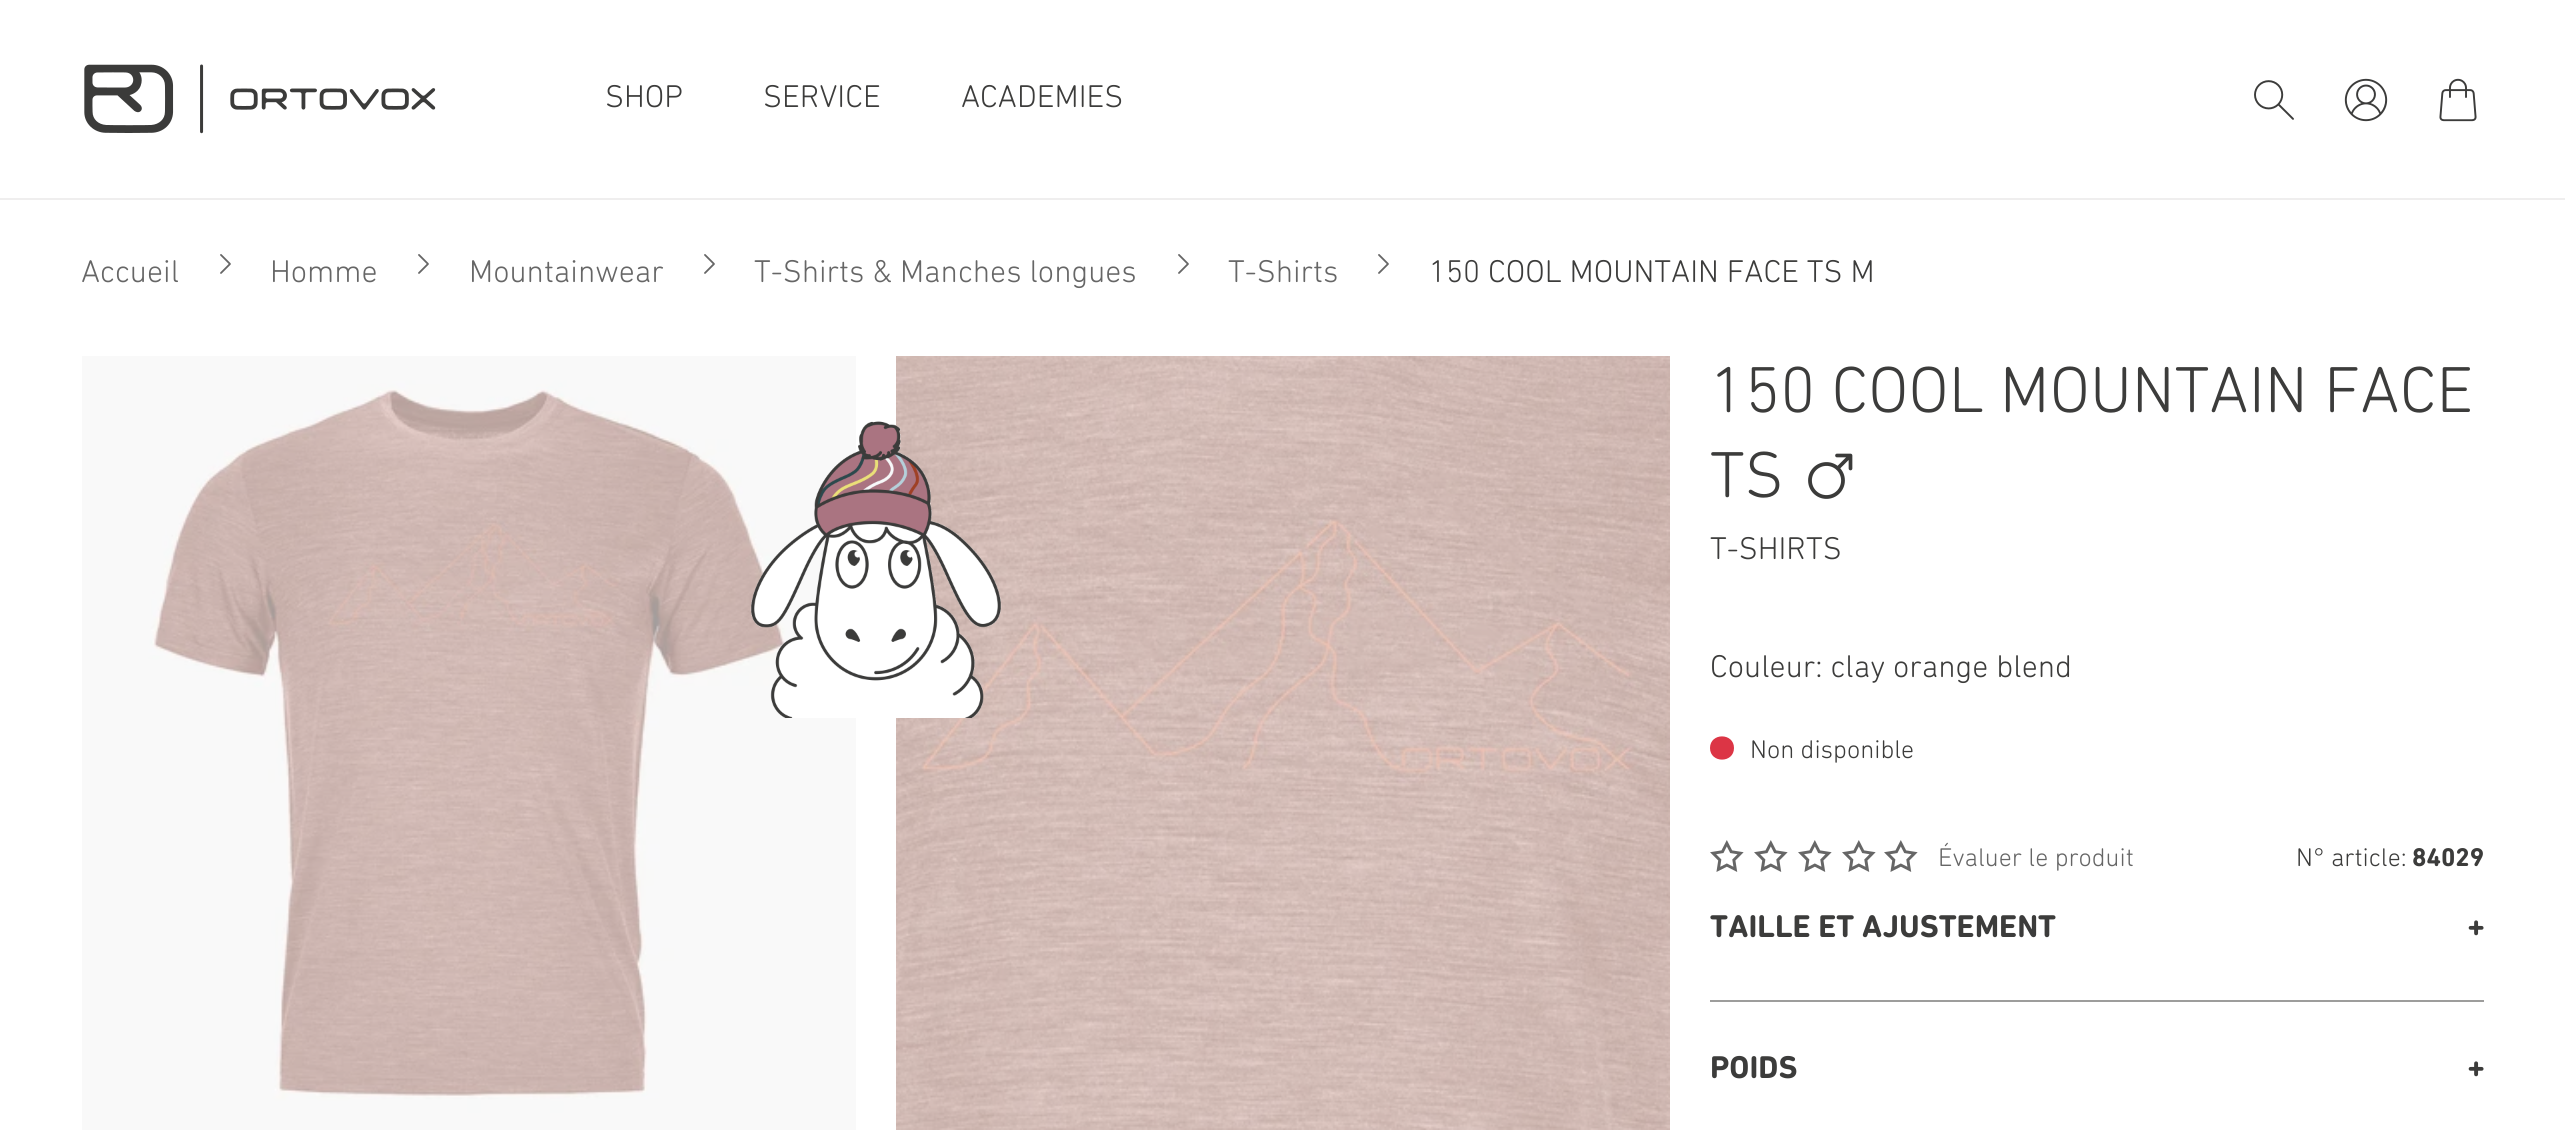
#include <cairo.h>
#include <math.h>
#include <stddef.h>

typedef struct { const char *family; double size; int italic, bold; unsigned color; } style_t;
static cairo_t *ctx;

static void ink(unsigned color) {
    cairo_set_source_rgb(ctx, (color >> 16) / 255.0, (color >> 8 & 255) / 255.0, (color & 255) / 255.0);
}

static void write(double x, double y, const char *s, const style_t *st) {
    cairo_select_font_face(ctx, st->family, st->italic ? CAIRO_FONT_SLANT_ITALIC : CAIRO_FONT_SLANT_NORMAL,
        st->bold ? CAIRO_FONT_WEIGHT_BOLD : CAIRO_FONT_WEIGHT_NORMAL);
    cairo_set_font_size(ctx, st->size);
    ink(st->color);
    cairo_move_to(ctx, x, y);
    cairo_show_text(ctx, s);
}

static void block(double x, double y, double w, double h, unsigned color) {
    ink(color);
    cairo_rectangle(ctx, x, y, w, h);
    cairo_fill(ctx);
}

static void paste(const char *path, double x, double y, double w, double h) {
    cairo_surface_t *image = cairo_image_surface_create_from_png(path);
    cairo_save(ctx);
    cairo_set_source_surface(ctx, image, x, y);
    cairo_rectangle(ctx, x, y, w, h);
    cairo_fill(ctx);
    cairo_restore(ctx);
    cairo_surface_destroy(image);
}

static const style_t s1 = {"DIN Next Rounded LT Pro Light", 32, 0, 0, 0x3c3c3b};
static const style_t s2 = {"DIN Next Rounded LT Pro Light", 32, 0, 0, 0x666666};
static const style_t s3 = {"DIN Next Rounded LT Pro Light", 66, 0, 0, 0x3c3c3b};
static const style_t s4 = {"DIN Next Rounded LT Pro Light", 26, 0, 0, 0x3c3c3b};
static const style_t s5 = {"DIN Next Rounded LT Pro Light", 26, 0, 0, 0x666666};
static const style_t s6 = {"DIN Next Rounded LT Pro", 26, 0, 1, 0x3c3c3b};
static const style_t s7 = {"DIN Next Rounded LT Pro", 32, 0, 1, 0x3c3c3b};

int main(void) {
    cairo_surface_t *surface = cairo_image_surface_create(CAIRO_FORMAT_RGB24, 2565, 1133);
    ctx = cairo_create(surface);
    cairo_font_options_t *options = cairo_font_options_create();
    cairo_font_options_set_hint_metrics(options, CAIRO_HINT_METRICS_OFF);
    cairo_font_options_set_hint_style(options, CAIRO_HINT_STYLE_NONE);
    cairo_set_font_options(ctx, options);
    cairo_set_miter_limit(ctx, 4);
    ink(0xffffff);
    cairo_paint(ctx);
    block(0, 198, 2565, 2, 0xefeeee);
    paste("pic1.png", 84, 64, 352, 70);
    write(605, 107, "SHOP", &s1);
    write(763, 107, "SERVICE", &s1);
    write(961, 107, "ACADEMIES", &s1);
    paste("pic2.png", 2254, 80, 40, 40);
    paste("pic3.png", 2344, 78, 44, 44);
    paste("pic4.png", 2439, 78, 38, 44);
    write(81, 282, "Accueil", &s2);
    paste("pic5.png", 220, 254, 11, 20);
    write(270, 282, "Homme", &s2);
    paste("pic5.png", 418, 254, 11, 20);
    write(469, 282, "Mountainwear", &s2);
    paste("pic5.png", 704, 254, 11, 20);
    write(754, 282, "T-Shirts & Manches longues", &s2);
    paste("pic5.png", 1178, 254, 11, 20);
    write(1228, 282, "T-Shirts", &s2);
    paste("pic5.png", 1378, 254, 11, 20);
    write(1429, 282, "150 COOL MOUNTAIN FACE TS M", &s1);
    paste("pic6.png", 82, 356, 774, 774);
    paste("pic7.png", 896, 356, 774, 774);
    paste("pic8.png", 750, 421, 252, 297);
    write(1710, 412, "150 COOL MOUNTAIN FACE", &s3);
    write(1710, 497, "TS", &s3);
    cairo_new_path(ctx);
    cairo_arc(ctx, 1826.5, 480.5, 16.5, 0, 2 * M_PI);
    ink(0x3b3b3a);
    cairo_set_line_width(ctx, 3.8);
    cairo_stroke(ctx);
    cairo_new_path(ctx);
    cairo_move_to(ctx, 1838, 468);
    cairo_line_to(ctx, 1849.5, 456.5);
    cairo_move_to(ctx, 1850.5, 468.5);
    cairo_line_to(ctx, 1850.5, 455.5);
    cairo_line_to(ctx, 1837, 455.5);
    cairo_set_line_width(ctx, 3.7);
    cairo_set_line_cap(ctx, CAIRO_LINE_CAP_ROUND);
    cairo_set_line_join(ctx, CAIRO_LINE_JOIN_ROUND);
    cairo_stroke(ctx);
    write(1710, 559, "T-SHIRTS", &s1);
    write(1710, 677, "Couleur: clay orange blend", &s1);
    ink(0xdc3545);
    cairo_new_path(ctx);
    cairo_move_to(ctx, 1710, 748);
    cairo_curve_to(ctx, 1710, 763.5, 1734, 763.5, 1734, 748);
    cairo_curve_to(ctx, 1734, 732.5, 1710, 732.5, 1710, 748);
    cairo_close_path(ctx);
    cairo_fill(ctx);
    write(1750, 758, "Non disponible", &s4);
    paste("pic9.png", 1710, 840, 34, 32);
    paste("pic9.png", 1754, 840, 34, 32);
    paste("pic9.png", 1798, 840, 34, 32);
    paste("pic9.png", 1842, 840, 34, 32);
    paste("pic9.png", 1884, 840, 34, 32);
    write(1938, 866, "Évaluer le produit", &s5);
    write(2296, 866, "N° article:", &s4);
    write(2412, 866, "84029", &s6);
    write(1710, 937, "TAILLE ET AJUSTEMENT", &s7);
    cairo_save(ctx);
    cairo_translate(ctx, 2485, 919);
    cairo_rotate(ctx, 180 * M_PI / 180);
    write(0, 0, "+", &s7);
    cairo_restore(ctx);
    block(1710, 1000, 774, 2, 0x9d9d9c);
    write(1710, 1078, "POIDS", &s7);
    cairo_save(ctx);
    cairo_translate(ctx, 2485, 1060);
    cairo_rotate(ctx, 180 * M_PI / 180);
    write(0, 0, "+", &s7);
    cairo_restore(ctx);
    cairo_surface_write_to_png(surface, "screenshot.png");
    cairo_font_options_destroy(options);
    cairo_destroy(ctx);
    cairo_surface_destroy(surface);
    return 0;
}
